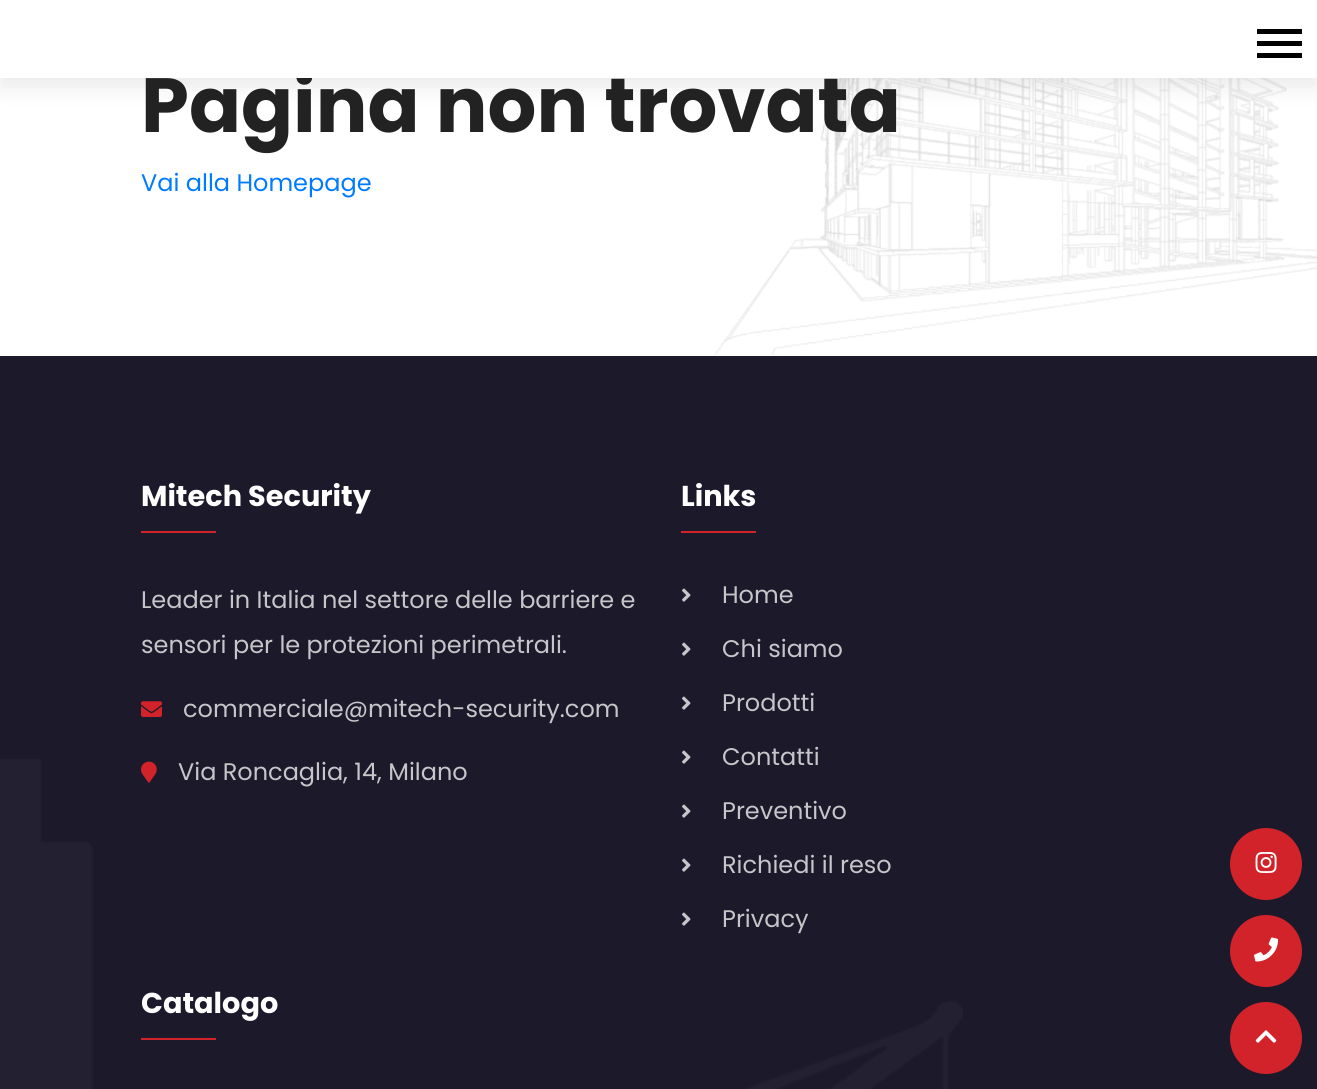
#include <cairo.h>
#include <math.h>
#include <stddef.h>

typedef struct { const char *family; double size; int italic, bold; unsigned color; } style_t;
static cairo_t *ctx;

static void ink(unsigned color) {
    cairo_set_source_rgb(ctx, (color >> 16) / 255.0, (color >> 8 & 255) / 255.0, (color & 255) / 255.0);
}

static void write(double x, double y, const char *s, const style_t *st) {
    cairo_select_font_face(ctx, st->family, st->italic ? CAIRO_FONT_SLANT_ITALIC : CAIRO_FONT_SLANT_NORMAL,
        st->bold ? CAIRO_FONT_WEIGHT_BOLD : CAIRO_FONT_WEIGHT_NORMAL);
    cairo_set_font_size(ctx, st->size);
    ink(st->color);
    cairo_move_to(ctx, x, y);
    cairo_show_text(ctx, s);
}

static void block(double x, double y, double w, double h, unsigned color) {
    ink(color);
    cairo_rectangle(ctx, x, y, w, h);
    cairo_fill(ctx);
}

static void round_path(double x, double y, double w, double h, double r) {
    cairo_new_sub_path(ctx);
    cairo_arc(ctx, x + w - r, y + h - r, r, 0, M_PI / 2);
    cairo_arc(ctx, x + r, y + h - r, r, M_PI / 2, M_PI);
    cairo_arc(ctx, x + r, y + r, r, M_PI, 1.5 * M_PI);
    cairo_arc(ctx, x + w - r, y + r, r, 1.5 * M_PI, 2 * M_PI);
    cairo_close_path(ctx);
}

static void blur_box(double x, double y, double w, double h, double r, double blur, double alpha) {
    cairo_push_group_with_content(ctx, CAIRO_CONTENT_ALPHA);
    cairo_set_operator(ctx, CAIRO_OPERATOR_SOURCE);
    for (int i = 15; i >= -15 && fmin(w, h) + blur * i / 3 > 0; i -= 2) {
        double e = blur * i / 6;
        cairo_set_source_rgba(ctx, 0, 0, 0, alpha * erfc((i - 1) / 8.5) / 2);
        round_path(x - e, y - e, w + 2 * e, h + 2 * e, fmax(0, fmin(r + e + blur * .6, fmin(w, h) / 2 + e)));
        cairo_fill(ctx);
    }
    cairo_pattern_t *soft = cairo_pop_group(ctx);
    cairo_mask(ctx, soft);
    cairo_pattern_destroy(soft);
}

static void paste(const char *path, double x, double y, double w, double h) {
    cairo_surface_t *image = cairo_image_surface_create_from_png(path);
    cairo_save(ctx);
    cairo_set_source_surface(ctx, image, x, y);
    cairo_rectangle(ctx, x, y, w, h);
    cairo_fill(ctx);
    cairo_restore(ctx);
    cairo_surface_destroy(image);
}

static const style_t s1 = {"Poppins", 76.75, 0, 1, 0x222222};
static const style_t s2 = {"Poppins", 24, 0, 0, 0x007bff};
static const style_t s3 = {"Poppins", 28.75, 0, 1, 0xffffff};
static const style_t s4 = {"Poppins", 24, 0, 0, 0xc6c6ca};

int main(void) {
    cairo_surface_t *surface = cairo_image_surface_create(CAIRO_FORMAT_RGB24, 1317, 1089);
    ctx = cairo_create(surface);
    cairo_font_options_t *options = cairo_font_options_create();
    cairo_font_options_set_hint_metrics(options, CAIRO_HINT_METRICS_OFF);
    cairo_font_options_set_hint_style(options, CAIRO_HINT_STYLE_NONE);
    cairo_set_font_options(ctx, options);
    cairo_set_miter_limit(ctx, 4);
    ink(0xffffff);
    cairo_paint(ctx);
    paste("pic1.png", 714, 78, 603, 277);
    ink(0x1b192a);
    blur_box(0, 8, 1317, 78, 0, 11, 0.1);
    write(141, 132, "Pagina non trovata", &s1);
    block(0, 0, 1317, 78, 0xffffff);
    block(1257, 29, 45, 5, 0x000000);
    block(1257, 41, 45, 5, 0x000000);
    block(1257, 53, 45, 5, 0x000000);
    write(141, 191, "Vai alla Homepage", &s2);
    block(0, 356, 1317, 733, 0x1b192a);
    write(141, 506, "Mitech Security", &s3);
    block(141, 531, 75, 2, 0xd2232a);
    write(141, 608, "Leader in Italia nel settore delle barriere e", &s4);
    write(141, 653, "sensori per le protezioni perimetrali.", &s4);
    paste("pic2.png", 141, 701, 21, 16);
    write(183, 717, "commerciale@mitech-security.com", &s4);
    paste("pic5.png", 0, 759, 963, 330);
    paste("pic3.png", 141, 761, 16, 22);
    write(178, 780, "Via Roncaglia, 14, Milano", &s4);
    write(681, 506, "Links", &s3);
    block(681, 531, 75, 2, 0xd2232a);
    paste("pic4.png", 682, 588, 9, 14);
    write(722, 603, "Home", &s4);
    paste("pic4.png", 682, 642, 9, 14);
    write(722, 657, "Chi siamo", &s4);
    paste("pic4.png", 682, 696, 9, 14);
    write(722, 711, "Prodotti", &s4);
    paste("pic4.png", 682, 750, 9, 14);
    write(722, 765, "Contatti", &s4);
    paste("pic4.png", 682, 804, 9, 14);
    write(722, 819, "Preventivo", &s4);
    paste("pic4.png", 682, 858, 9, 14);
    write(722, 873, "Richiedi il reso", &s4);
    paste("pic4.png", 682, 912, 9, 14);
    write(722, 927, "Privacy", &s4);
    write(141, 1013, "Catalogo", &s3);
    block(141, 1038, 75, 2, 0xd2232a);
    cairo_new_path(ctx);
    cairo_arc(ctx, 1266, 864, 36, 0, 2 * M_PI);
    cairo_fill(ctx);
    paste("pic6.png", 1255, 852, 22, 21);
    cairo_arc(ctx, 1266, 951, 36, 0, 2 * M_PI);
    cairo_fill(ctx);
    paste("pic7.png", 1254, 937, 24, 25);
    cairo_arc(ctx, 1266, 1038, 36, 0, 2 * M_PI);
    cairo_fill(ctx);
    paste("pic8.png", 1255, 1030, 22, 13);
    cairo_surface_write_to_png(surface, "screenshot.png");
    cairo_font_options_destroy(options);
    cairo_destroy(ctx);
    cairo_surface_destroy(surface);
    return 0;
}
